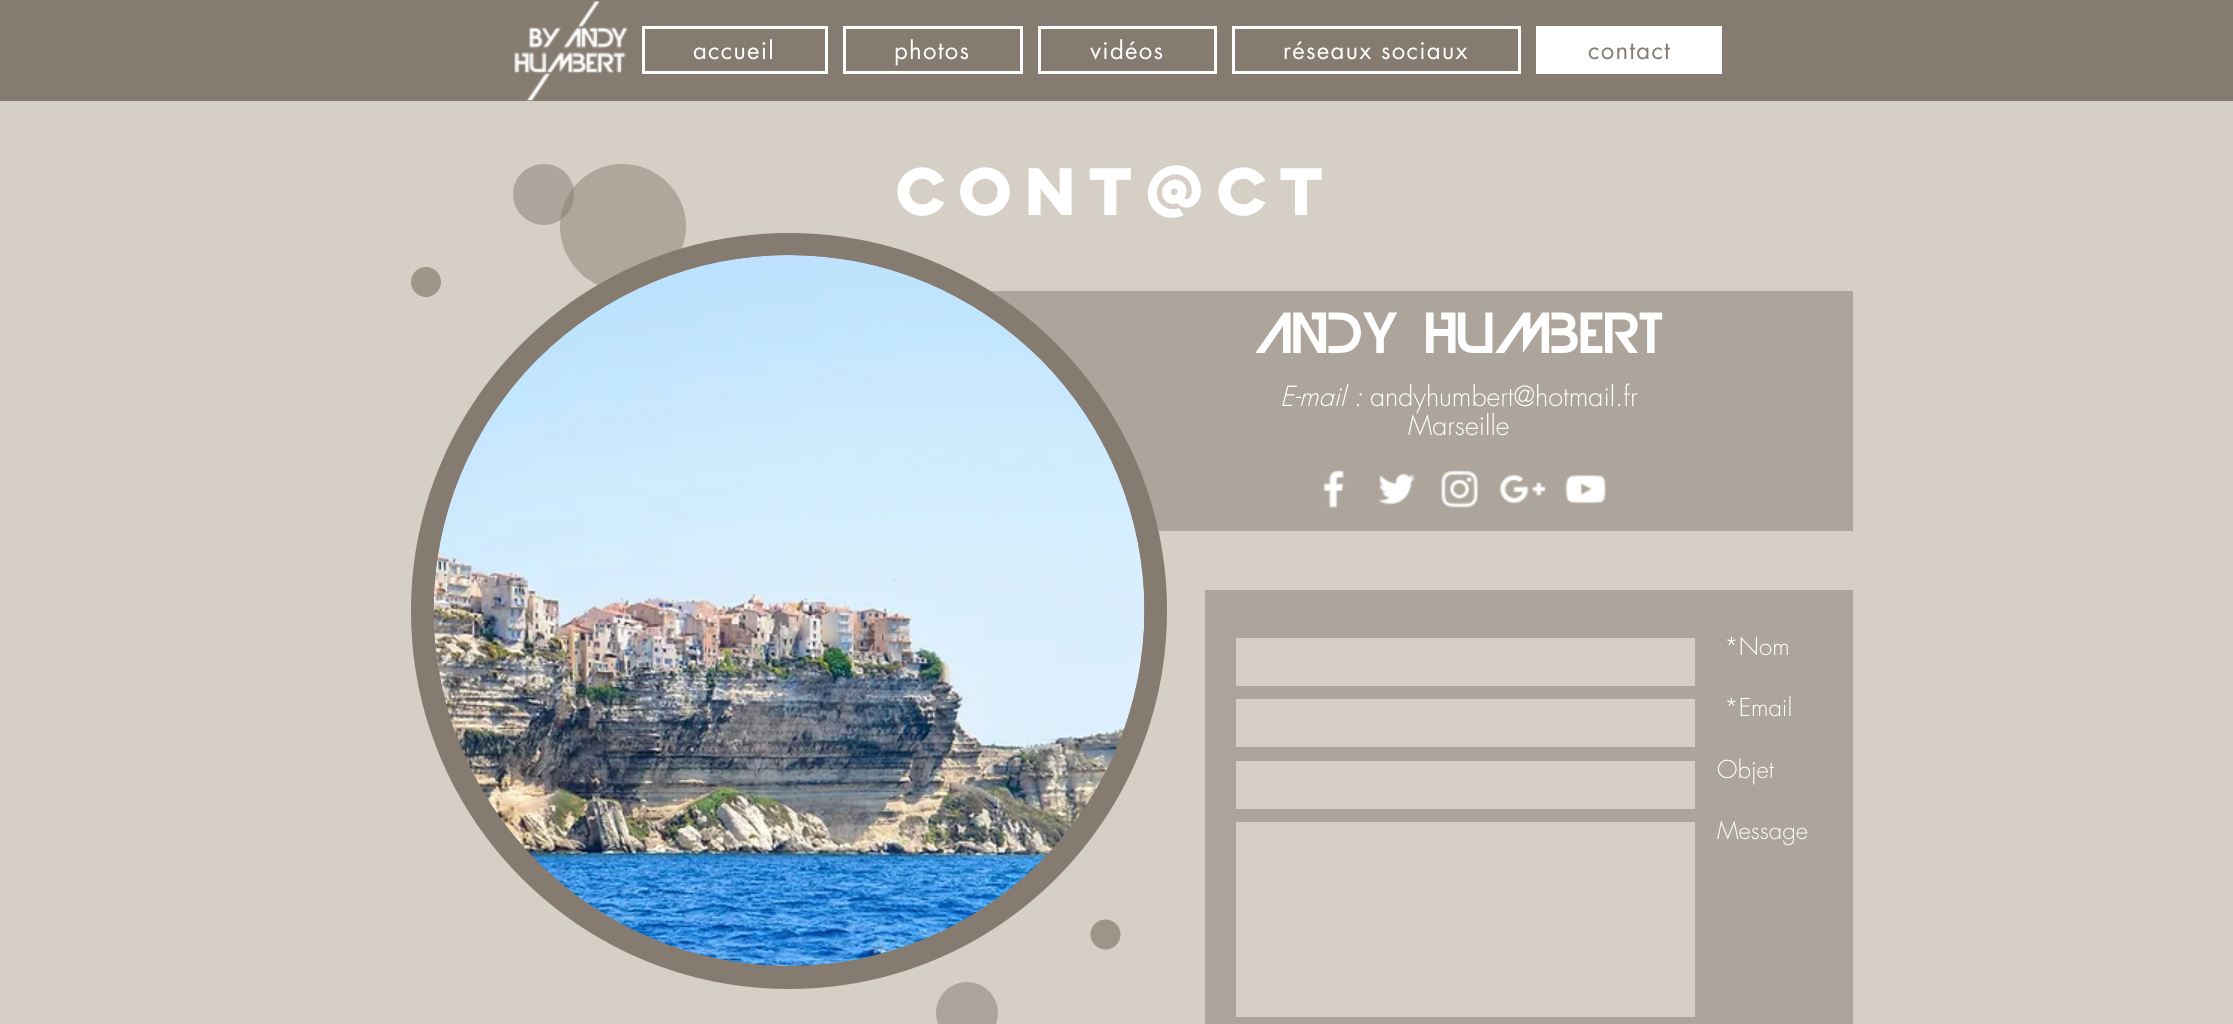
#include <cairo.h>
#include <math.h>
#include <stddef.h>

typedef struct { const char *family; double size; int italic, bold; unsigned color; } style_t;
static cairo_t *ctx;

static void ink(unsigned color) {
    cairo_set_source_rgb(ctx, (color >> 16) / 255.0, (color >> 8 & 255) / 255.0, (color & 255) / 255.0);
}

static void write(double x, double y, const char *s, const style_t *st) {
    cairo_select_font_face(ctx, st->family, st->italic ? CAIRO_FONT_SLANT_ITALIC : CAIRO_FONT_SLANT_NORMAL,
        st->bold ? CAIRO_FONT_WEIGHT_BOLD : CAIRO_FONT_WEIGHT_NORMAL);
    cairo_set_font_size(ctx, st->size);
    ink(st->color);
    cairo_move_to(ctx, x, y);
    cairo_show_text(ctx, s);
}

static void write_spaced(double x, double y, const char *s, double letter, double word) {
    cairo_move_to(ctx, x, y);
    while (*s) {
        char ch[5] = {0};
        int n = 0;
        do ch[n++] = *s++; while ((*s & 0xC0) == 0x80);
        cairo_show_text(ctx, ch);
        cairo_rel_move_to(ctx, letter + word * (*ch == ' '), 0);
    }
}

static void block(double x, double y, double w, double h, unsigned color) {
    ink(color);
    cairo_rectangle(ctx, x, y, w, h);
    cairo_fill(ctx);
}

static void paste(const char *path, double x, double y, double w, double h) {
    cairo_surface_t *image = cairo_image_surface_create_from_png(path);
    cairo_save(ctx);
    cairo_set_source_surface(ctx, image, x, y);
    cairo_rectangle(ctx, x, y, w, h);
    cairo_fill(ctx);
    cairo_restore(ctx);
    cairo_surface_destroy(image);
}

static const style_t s1 = {"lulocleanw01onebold", 60, 0, 1, 0xffffff};
static const style_t s2 = {"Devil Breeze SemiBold", 54, 0, 0, 0xffffff};
static const style_t s3 = {"futura Light", 27, 1, 0, 0xffffff};
static const style_t s4 = {"futura Light", 27, 0, 0, 0xffffff};
static const style_t s5 = {"futura Light", 24, 0, 0, 0xffffff};

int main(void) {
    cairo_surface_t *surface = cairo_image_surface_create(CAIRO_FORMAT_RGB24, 2233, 1024);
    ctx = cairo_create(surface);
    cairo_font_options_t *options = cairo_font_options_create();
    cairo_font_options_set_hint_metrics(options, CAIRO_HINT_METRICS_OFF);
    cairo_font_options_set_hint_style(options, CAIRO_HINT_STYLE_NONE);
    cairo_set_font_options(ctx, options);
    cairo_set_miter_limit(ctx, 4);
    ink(0xd6cfc5);
    cairo_paint(ctx);
    block(0, 0, 2233, 101, 0x857b70);
    paste("pic1.png", 514, 1, 114, 100);
    cairo_rectangle(ctx, 643.5, 27.5, 183, 45);
    ink(0xffffff);
    cairo_set_line_width(ctx, 3);
    cairo_stroke(ctx);
    cairo_select_font_face(ctx, "futura", CAIRO_FONT_SLANT_NORMAL, CAIRO_FONT_WEIGHT_NORMAL);
    cairo_set_font_size(ctx, 24);
    write_spaced(693, 59, "accueil", 1.25, 0);
    cairo_rectangle(ctx, 844.5, 27.5, 177, 45);
    cairo_stroke(ctx);
    write_spaced(894, 59, "photos", 1.25, 0);
    cairo_rectangle(ctx, 1039.5, 27.5, 176, 45);
    cairo_stroke(ctx);
    write_spaced(1090, 59, "vidéos", 1.25, 0);
    cairo_rectangle(ctx, 1233.5, 27.5, 286, 45);
    cairo_stroke(ctx);
    write_spaced(1283, 59, "réseaux sociaux", 1.25, 0);
    block(1536, 26, 186, 48, 0xffffff);
    ink(0x857b70);
    write_spaced(1588, 59, "contact", 1.25, 0);
    ink(0xada59b);
    cairo_new_path(ctx);
    cairo_move_to(ctx, 574, 194);
    cairo_curve_to(ctx, 574, 211, 561, 225, 544, 225);
    cairo_curve_to(ctx, 527, 225, 513, 211, 513, 194);
    cairo_curve_to(ctx, 513, 177, 527, 164, 544, 164);
    cairo_curve_to(ctx, 561, 164, 574, 177, 574, 194);
    cairo_close_path(ctx);
    cairo_fill(ctx);
    block(990, 291, 863, 240, 0xada59b);
    ink(0x857b70);
    cairo_arc(ctx, 789, 611, 366.5, 0, 2 * M_PI);
    cairo_fill_preserve(ctx);
    cairo_set_line_width(ctx, 23);
    cairo_stroke(ctx);
    paste("pic2.png", 433, 255, 712, 711);
    cairo_set_source_rgba(ctx, 0.522, 0.482, 0.439, 0.48);
    cairo_new_path(ctx);
    cairo_move_to(ctx, 686, 226);
    cairo_curve_to(ctx, 686, 261, 657, 290, 622, 290);
    cairo_curve_to(ctx, 588, 290, 560, 261, 560, 226);
    cairo_curve_to(ctx, 560, 192, 588, 164, 622, 164);
    cairo_curve_to(ctx, 657, 164, 686, 192, 686, 226);
    cairo_close_path(ctx);
    cairo_fill(ctx);
    write(896, 215, "Cont@ct", &s1);
    paste("pic3.png", 411, 267, 30, 30);
    write(1254, 353, "ANDy HuMBert", &s2);
    write(1280, 406, "E-mail :", &s3);
    write(1370, 406, "andyhumbert@hotmail.fr", &s4);
    write(1408, 435, "Marseille", &s4);
    paste("pic4.png", 1323, 470, 22, 38);
    paste("pic5.png", 1378, 473, 37, 32);
    paste("pic6.png", 1441, 470, 37, 38);
    paste("pic7.png", 1499, 474, 47, 30);
    paste("pic8.png", 1565, 475, 42, 29);
    block(1205, 590, 648, 434, 0xada59b);
    block(1236, 638, 459, 48, 0xd6cfc5);
    write(1724, 655, "*Nom", &s5);
    block(1236, 699, 459, 48, 0xd6cfc5);
    write(1724, 716, "*Email", &s5);
    block(1236, 761, 459, 48, 0xd6cfc5);
    write(1717, 778, "Objet", &s5);
    block(1236, 822, 459, 195, 0xd6cfc5);
    write(1717, 839, "Message", &s5);
    paste("pic9.png", 1090, 919, 31, 31);
    ink(0xada59b);
    cairo_new_path(ctx);
    cairo_move_to(ctx, 998, 1013);
    cairo_curve_to(ctx, 998, 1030, 984, 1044, 967, 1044);
    cairo_curve_to(ctx, 950, 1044, 936, 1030, 936, 1013);
    cairo_curve_to(ctx, 936, 996, 950, 982, 967, 982);
    cairo_curve_to(ctx, 984, 982, 998, 996, 998, 1013);
    cairo_close_path(ctx);
    cairo_fill(ctx);
    cairo_surface_write_to_png(surface, "screenshot.png");
    cairo_font_options_destroy(options);
    cairo_destroy(ctx);
    cairo_surface_destroy(surface);
    return 0;
}
